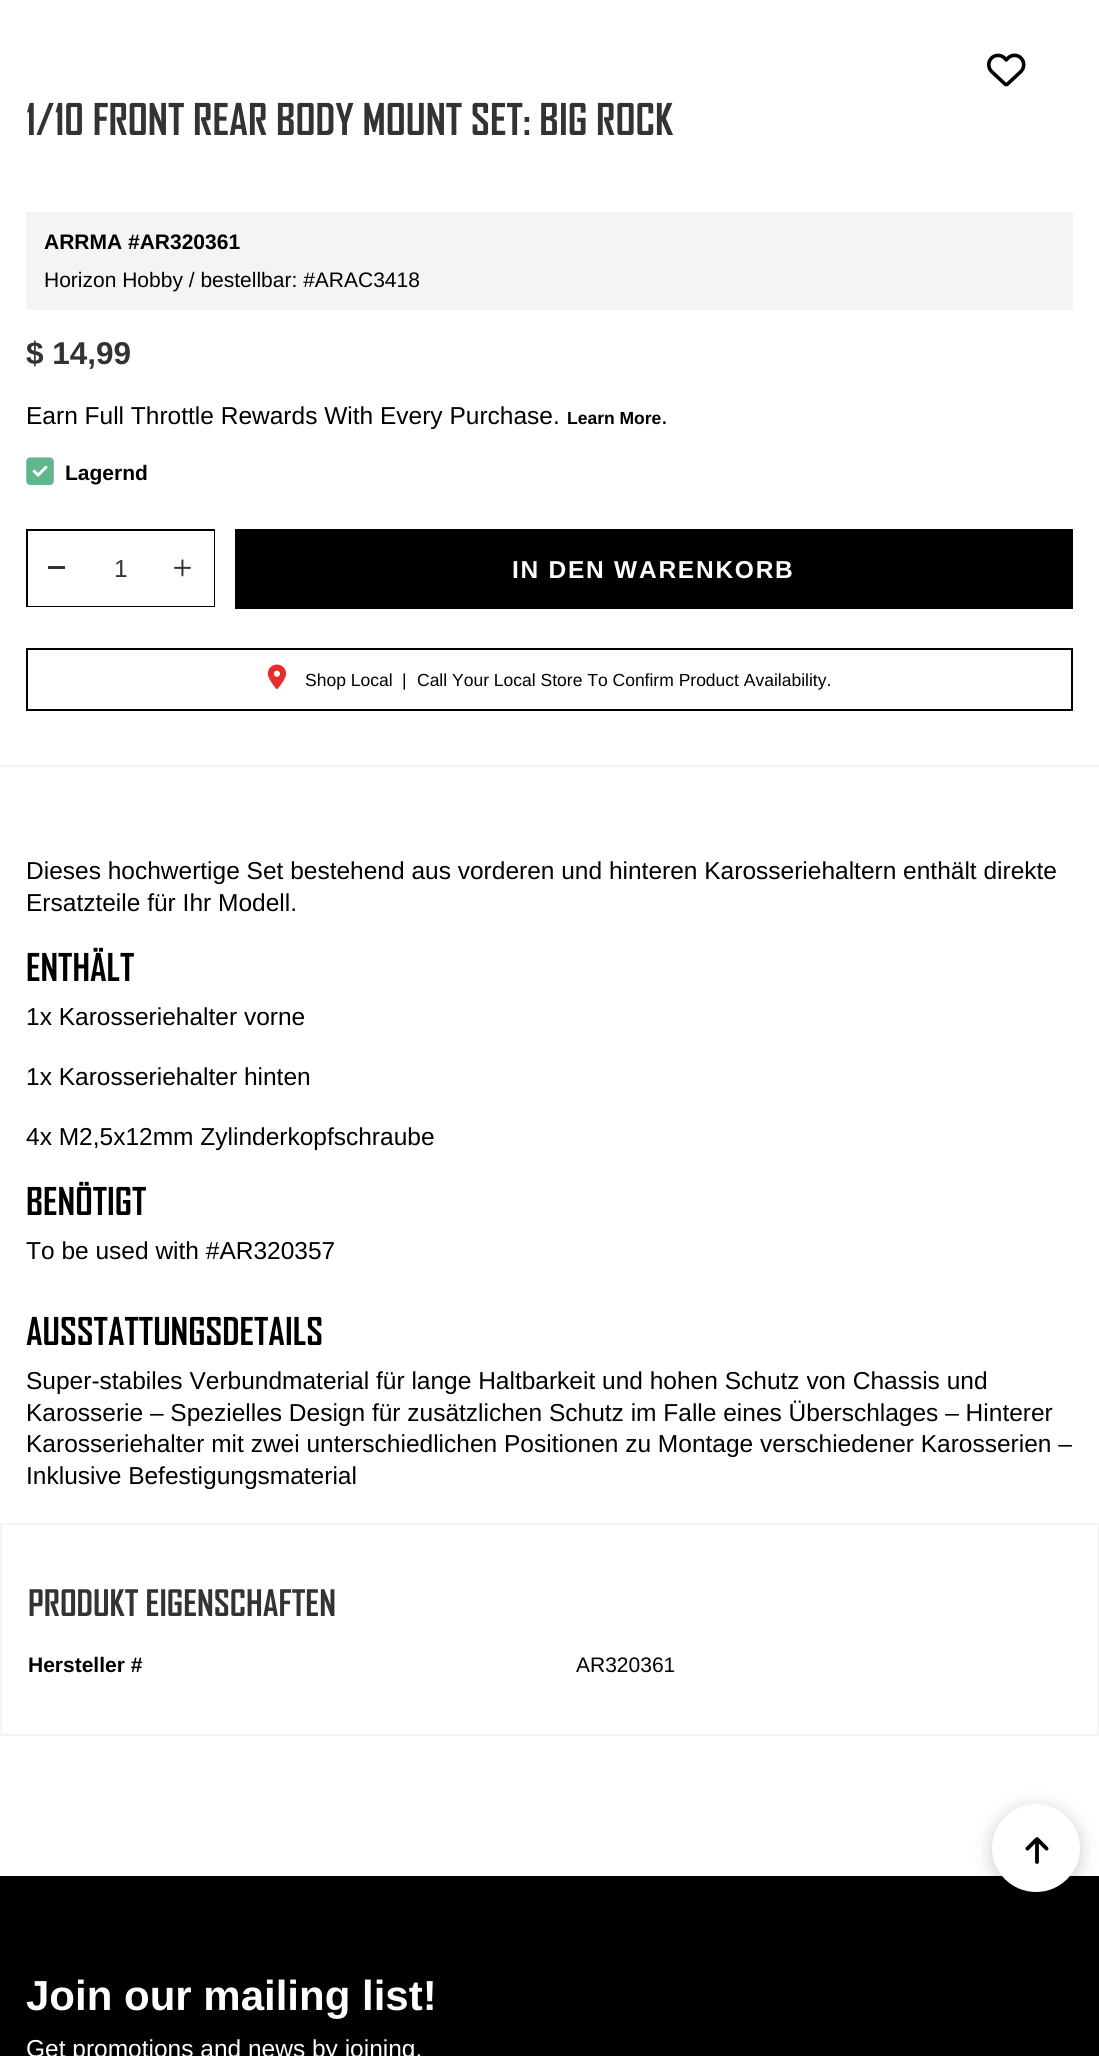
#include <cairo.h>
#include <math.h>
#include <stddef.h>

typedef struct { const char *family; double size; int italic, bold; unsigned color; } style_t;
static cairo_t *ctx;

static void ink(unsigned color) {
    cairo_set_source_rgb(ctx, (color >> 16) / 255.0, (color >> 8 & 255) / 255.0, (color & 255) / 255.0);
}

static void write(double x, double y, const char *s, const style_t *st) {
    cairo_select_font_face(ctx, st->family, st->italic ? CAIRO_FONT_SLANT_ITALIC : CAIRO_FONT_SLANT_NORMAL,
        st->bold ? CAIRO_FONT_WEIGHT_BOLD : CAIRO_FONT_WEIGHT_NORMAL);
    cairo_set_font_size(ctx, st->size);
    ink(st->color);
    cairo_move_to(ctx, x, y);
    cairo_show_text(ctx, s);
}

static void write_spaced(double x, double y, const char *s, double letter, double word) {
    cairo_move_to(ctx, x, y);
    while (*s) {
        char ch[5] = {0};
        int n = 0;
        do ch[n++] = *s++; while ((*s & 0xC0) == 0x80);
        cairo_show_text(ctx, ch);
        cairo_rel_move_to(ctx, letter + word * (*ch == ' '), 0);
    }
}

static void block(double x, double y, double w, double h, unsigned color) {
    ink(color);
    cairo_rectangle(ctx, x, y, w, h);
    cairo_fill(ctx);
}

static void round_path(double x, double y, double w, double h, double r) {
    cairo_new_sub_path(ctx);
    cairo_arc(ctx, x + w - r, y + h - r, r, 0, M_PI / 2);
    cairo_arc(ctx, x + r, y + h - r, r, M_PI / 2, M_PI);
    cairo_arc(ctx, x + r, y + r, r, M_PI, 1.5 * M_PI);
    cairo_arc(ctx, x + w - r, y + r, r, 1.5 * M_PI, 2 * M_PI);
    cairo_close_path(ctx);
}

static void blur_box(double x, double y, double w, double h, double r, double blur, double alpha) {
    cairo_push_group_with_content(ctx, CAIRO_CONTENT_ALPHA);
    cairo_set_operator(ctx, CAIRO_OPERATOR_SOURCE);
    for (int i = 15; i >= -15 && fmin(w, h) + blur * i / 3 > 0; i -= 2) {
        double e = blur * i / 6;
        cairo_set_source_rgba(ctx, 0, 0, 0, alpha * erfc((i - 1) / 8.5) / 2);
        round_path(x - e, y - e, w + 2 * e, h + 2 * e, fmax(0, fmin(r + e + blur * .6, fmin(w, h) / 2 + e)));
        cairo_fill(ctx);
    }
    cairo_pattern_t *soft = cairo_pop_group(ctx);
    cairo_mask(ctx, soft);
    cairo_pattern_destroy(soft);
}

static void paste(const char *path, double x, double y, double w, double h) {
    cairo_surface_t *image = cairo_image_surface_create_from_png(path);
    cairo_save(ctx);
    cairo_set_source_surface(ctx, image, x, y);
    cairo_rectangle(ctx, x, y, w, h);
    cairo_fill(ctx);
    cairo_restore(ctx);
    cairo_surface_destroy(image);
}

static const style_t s1 = {"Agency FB", 42, 0, 1, 0x333333};
static const style_t s2 = {"Liberation Sans", 21, 0, 1, 0x000000};
static const style_t s3 = {"Liberation Sans", 21, 0, 0, 0x000000};
static const style_t s4 = {"Liberation Sans", 31.5, 0, 1, 0x333333};
static const style_t s5 = {"Liberation Sans", 24.5, 0, 0, 0x000000};
static const style_t s6 = {"Liberation Sans", 17.5, 0, 1, 0x000000};
static const style_t s7 = {"Liberation Sans", 24.5, 0, 0, 0x333333};
static const style_t s8 = {"Liberation Sans", 17.5, 0, 0, 0x000000};
static const style_t s9 = {"Agency FB", 36.75, 0, 1, 0x000000};
static const style_t s10 = {"Agency FB", 35, 0, 1, 0x333333};
static const style_t s11 = {"Liberation Sans", 42, 0, 1, 0xfefefe};
static const style_t s12 = {"Liberation Sans", 24.5, 0, 0, 0xfefefe};

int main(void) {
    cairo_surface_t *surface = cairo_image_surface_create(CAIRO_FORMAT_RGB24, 1099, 2056);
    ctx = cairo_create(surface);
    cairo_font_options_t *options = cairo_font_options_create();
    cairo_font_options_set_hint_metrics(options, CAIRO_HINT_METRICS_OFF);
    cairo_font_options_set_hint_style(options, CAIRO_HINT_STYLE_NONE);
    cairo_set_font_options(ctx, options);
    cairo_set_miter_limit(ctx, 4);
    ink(0xffffff);
    cairo_paint(ctx);
    block(0, 765, 1099, 2, 0xf4f4f4);
    paste("pic1.png", 987, 53, 39, 34);
    write(26, 135, "1/10 FRONT REAR BODY MOUNT SET: BIG ROCK", &s1);
    block(26, 212, 1047, 98, 0xf4f4f4);
    write(44, 249, "ARRMA #AR320361", &s2);
    write(44, 287, "Horizon Hobby / bestellbar: #ARAC3418", &s3);
    write(26, 364, "$ 14,99", &s4);
    write(26, 424, "Earn Full Throttle Rewards With Every Purchase.", &s5);
    write(567, 424, "Learn More", &s6);
    write(661, 424, ".", &s5);
    paste("pic2.png", 26, 457, 28, 28);
    write(65, 480, "Lagernd", &s2);
    block(26, 529, 189, 2, 0x000000);
    block(26, 606, 130, 1, 0x000000);
    block(26, 529, 2, 78, 0x000000);
    block(48, 566, 17, 3, 0x333333);
    write(114, 577, "1", &s7);
    block(214, 529, 1, 78, 0x000000);
    block(154, 606, 61, 1, 0x000000);
    paste("pic3.png", 174, 559, 17, 18);
    block(235, 529, 838, 80, 0x000000);
    cairo_select_font_face(ctx, "Liberation Sans", CAIRO_FONT_SLANT_NORMAL, CAIRO_FONT_WEIGHT_BOLD);
    ink(0xfefefe);
    write_spaced(512, 578, "IN DEN WARENKORB", 1.75, 0);
    cairo_rectangle(ctx, 27, 649, 1045, 61);
    ink(0x000000);
    cairo_stroke(ctx);
    paste("pic4.png", 267, 664, 20, 25);
    write(305, 686, "Shop Local", &s8);
    write(402, 686, "|", &s8);
    write(417, 686, "Call Your Local Store To Confirm Product Availability.", &s8);
    write(26, 879, "Dieses hochwertige Set bestehend aus vorderen und hinteren Karosseriehaltern enthält direkte", &s5);
    write(26, 911, "Ersatzteile für Ihr Modell.", &s5);
    write(26, 981, "ENTHÄLT", &s9);
    write(26, 1025, "1x Karosseriehalter vorne", &s5);
    write(26, 1085, "1x Karosseriehalter hinten", &s5);
    write(26, 1145, "4x M2,5x12mm Zylinderkopfschraube", &s5);
    write(26, 1215, "BENÖTIGT", &s9);
    write(26, 1259, "To be used with #AR320357", &s5);
    write(26, 1345, "AUSSTATTUNGSDETAILS", &s9);
    write(26, 1389, "Super-stabiles Verbundmaterial für lange Haltbarkeit und hohen Schutz von Chassis und", &s5);
    write(26, 1421, "Karosserie – Spezielles Design für zusätzlichen Schutz im Falle eines Überschlages – Hinterer", &s5);
    write(26, 1452, "Karosseriehalter mit zwei unterschiedlichen Positionen zu Montage verschiedener Karosserien –", &s5);
    write(26, 1484, "Inklusive Befestigungsmaterial", &s5);
    cairo_rectangle(ctx, 1, 1524, 1097, 211);
    ink(0xf4f4f4);
    cairo_stroke(ctx);
    write(28, 1616, "PRODUKT EIGENSCHAFTEN", &s10);
    write(28, 1672, "Hersteller #", &s2);
    write(576, 1672, "AR320361", &s3);
    block(0, 1876, 1099, 180, 0x000000);
    ink(0x000000);
    blur_box(992, 1808, 88, 87, 43.5, 9, 0.2);
    ink(0xffffff);
    cairo_arc(ctx, 1036, 1848, 44, 0, 2 * M_PI);
    cairo_fill(ctx);
    paste("pic5.png", 1025, 1837, 24, 27);
    write(26, 2010, "Join our mailing list!", &s11);
    write(26, 2057, "Get promotions and news by joining.", &s12);
    cairo_surface_write_to_png(surface, "screenshot.png");
    cairo_font_options_destroy(options);
    cairo_destroy(ctx);
    cairo_surface_destroy(surface);
    return 0;
}
